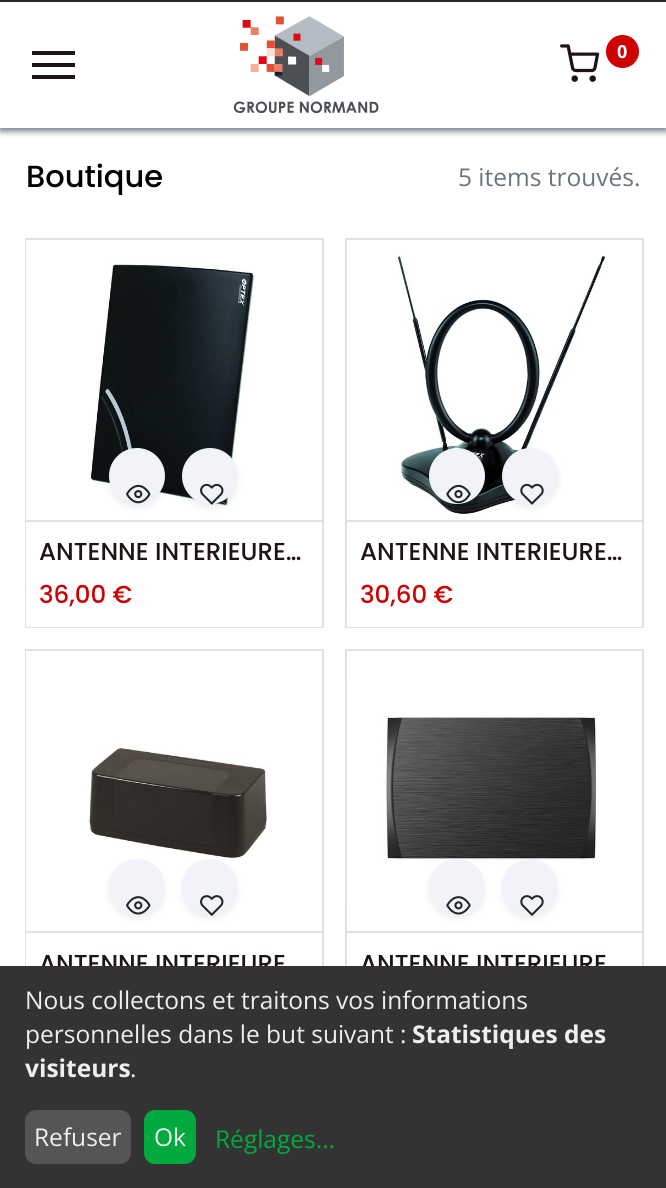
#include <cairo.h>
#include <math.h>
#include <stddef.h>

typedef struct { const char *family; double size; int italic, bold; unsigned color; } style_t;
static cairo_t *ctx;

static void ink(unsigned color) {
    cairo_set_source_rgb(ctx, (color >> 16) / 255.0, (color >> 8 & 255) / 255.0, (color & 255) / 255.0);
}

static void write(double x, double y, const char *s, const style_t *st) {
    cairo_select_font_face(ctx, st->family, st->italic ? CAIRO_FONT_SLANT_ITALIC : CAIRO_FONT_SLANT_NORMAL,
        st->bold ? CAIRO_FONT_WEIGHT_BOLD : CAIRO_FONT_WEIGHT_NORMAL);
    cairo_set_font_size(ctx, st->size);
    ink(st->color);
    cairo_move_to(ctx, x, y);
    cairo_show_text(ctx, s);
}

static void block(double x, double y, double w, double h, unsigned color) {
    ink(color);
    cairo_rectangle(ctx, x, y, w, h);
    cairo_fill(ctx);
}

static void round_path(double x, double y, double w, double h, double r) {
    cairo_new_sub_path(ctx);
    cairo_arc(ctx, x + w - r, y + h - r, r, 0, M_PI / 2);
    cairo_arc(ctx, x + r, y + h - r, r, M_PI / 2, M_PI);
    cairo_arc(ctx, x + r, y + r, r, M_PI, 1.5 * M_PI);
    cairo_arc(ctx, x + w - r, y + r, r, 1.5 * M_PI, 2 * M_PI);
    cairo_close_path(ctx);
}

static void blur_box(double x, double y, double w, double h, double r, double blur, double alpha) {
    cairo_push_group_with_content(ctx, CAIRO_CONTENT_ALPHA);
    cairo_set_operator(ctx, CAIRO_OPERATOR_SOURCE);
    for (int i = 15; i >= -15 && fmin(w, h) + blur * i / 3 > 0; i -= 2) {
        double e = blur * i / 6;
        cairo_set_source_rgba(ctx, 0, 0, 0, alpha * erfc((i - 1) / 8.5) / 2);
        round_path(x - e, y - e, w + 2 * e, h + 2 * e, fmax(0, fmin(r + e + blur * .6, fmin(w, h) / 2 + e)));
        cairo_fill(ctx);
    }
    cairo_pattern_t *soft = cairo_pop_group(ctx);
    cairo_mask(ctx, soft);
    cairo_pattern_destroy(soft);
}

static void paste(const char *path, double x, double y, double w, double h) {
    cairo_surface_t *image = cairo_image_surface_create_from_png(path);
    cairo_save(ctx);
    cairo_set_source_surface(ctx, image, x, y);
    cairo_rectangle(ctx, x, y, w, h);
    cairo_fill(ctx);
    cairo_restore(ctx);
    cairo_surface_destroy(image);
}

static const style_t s1 = {"Open Sans", 18, 0, 1, 0xffffff};
static const style_t s2 = {"Poppins Medium", 30.5, 0, 0, 0x000000};
static const style_t s3 = {"Open Sans", 24.5, 0, 0, 0x6c757d};
static const style_t s4 = {"Poppins Medium", 24.5, 0, 0, 0x1f1414};
static const style_t s5 = {"Poppins Medium", 24.5, 0, 0, 0xce0000};
static const style_t s6 = {"Open Sans", 24.5, 0, 0, 0xeeeeee};
static const style_t s7 = {"Open Sans", 24.5, 0, 1, 0xeeeeee};
static const style_t s8 = {"Open Sans", 24.5, 0, 0, 0x00aa3e};

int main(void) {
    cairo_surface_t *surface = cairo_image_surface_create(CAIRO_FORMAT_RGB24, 666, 1188);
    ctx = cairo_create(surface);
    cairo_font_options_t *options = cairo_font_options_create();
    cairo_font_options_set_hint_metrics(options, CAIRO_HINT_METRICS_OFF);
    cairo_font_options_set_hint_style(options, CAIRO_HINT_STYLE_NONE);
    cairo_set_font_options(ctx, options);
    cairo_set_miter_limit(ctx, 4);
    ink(0xffffff);
    cairo_paint(ctx);
    block(0, 0, 666, 2, 0x1f1f1f);
    ink(0x6c757d);
    blur_box(0, 5, 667, 126, 0, 3.5, 1);
    block(0, 2, 666, 126, 0xffffff);
    block(32, 51, 43, 4, 0x1f1414);
    block(32, 63, 43, 4, 0x1f1414);
    block(32, 75, 43, 4, 0x1f1414);
    paste("pic1.png", 233, 16, 146, 97);
    paste("pic2.png", 560, 44, 40, 38);
    ink(0xce0000);
    cairo_arc(ctx, 622.5, 51.5, 16.5, 0, 2 * M_PI);
    cairo_fill(ctx);
    write(617, 58, "0", &s1);
    write(26, 187, "Boutique", &s2);
    write(458, 186, "5 items trouvés.", &s3);
    cairo_rectangle(ctx, 26, 239, 297, 388);
    ink(0xdee2e6);
    cairo_stroke(ctx);
    cairo_set_source_rgba(ctx, 1, 1, 1, 0.9);
    cairo_rectangle(ctx, 26, 240, 1, 280);
    cairo_fill(ctx);
    paste("pic3.png", 90, 263, 165, 243);
    block(26, 522, 296, 105, 0xffffff);
    block(26, 520, 296, 2, 0xdee2e6);
    ink(0x000000);
    blur_box(109, 452, 56, 56, 28, 3.5, 0.07);
    ink(0xf1f3f8);
    cairo_arc(ctx, 137, 476, 19, 0, 2 * M_PI);
    cairo_fill_preserve(ctx);
    cairo_set_line_width(ctx, 18);
    cairo_stroke(ctx);
    paste("pic4.png", 126, 484, 25, 20);
    ink(0x000000);
    blur_box(182, 452, 56, 56, 28, 3.5, 0.07);
    ink(0xf1f3f8);
    cairo_arc(ctx, 210, 476, 19, 0, 2 * M_PI);
    cairo_fill_preserve(ctx);
    cairo_stroke(ctx);
    paste("pic5.png", 200, 483, 24, 22);
    write(39, 560, "ANTENNE INTERIEURE…", &s4);
    write(39, 603, "36,00 €", &s5);
    cairo_rectangle(ctx, 346, 239, 297, 388);
    ink(0xdee2e6);
    cairo_set_line_width(ctx, 2);
    cairo_stroke(ctx);
    paste("pic6.png", 397, 255, 209, 260);
    block(347, 626, 295, 1, 0xffffff);
    block(347, 520, 295, 2, 0xdee2e6);
    ink(0x000000);
    blur_box(429, 452, 56, 56, 28, 3.5, 0.07);
    ink(0xf1f3f8);
    cairo_arc(ctx, 457, 476, 19, 0, 2 * M_PI);
    cairo_fill_preserve(ctx);
    cairo_set_line_width(ctx, 18);
    cairo_stroke(ctx);
    paste("pic7.png", 446, 484, 25, 20);
    ink(0x000000);
    blur_box(502, 452, 56, 56, 28, 3.5, 0.07);
    ink(0xf1f3f8);
    cairo_arc(ctx, 530, 476, 19, 0, 2 * M_PI);
    cairo_fill_preserve(ctx);
    cairo_stroke(ctx);
    paste("pic8.png", 520, 483, 24, 22);
    write(360, 560, "ANTENNE INTERIEURE…", &s4);
    write(360, 603, "30,60 €", &s5);
    cairo_rectangle(ctx, 26, 650, 297, 389);
    ink(0xdee2e6);
    cairo_set_line_width(ctx, 2);
    cairo_stroke(ctx);
    cairo_set_source_rgba(ctx, 1, 1, 1, 0.9);
    cairo_rectangle(ctx, 26, 651, 1, 280);
    cairo_fill(ctx);
    paste("pic9.png", 88, 748, 179, 111);
    block(26, 933, 1, 33, 0xffffff);
    block(26, 931, 296, 2, 0xdee2e6);
    ink(0x000000);
    blur_box(109, 863, 56, 56, 28, 3.5, 0.07);
    ink(0xf1f3f8);
    cairo_arc(ctx, 137, 887, 19, 0, 2 * M_PI);
    cairo_fill_preserve(ctx);
    cairo_set_line_width(ctx, 18);
    cairo_stroke(ctx);
    paste("pic10.png", 126, 896, 25, 19);
    ink(0x000000);
    blur_box(182, 863, 56, 56, 28, 3.5, 0.07);
    ink(0xf1f3f8);
    cairo_arc(ctx, 210, 887, 19, 0, 2 * M_PI);
    cairo_fill_preserve(ctx);
    cairo_stroke(ctx);
    paste("pic11.png", 200, 895, 24, 21);
    write(39, 972, "ANTENNE INTERIEURE", &s4);
    cairo_rectangle(ctx, 346, 650, 297, 389);
    ink(0xdee2e6);
    cairo_set_line_width(ctx, 2);
    cairo_stroke(ctx);
    paste("pic12.png", 346, 682, 251, 218);
    block(347, 931, 295, 2, 0xdee2e6);
    ink(0x000000);
    blur_box(429, 863, 56, 56, 28, 3.5, 0.07);
    ink(0xf1f3f8);
    cairo_arc(ctx, 457, 887, 19, 0, 2 * M_PI);
    cairo_fill_preserve(ctx);
    cairo_set_line_width(ctx, 18);
    cairo_stroke(ctx);
    paste("pic13.png", 446, 896, 25, 19);
    ink(0x000000);
    blur_box(502, 863, 56, 56, 28, 3.5, 0.07);
    ink(0xf1f3f8);
    cairo_arc(ctx, 530, 887, 19, 0, 2 * M_PI);
    cairo_fill_preserve(ctx);
    cairo_stroke(ctx);
    paste("pic14.png", 520, 895, 24, 21);
    write(360, 972, "ANTENNE INTERIEURE", &s4);
    block(0, 966, 666, 222, 0x333333);
    write(25, 1009, "Nous collectons et traitons vos informations", &s6);
    write(25, 1043, "personnelles dans le but suivant :", &s6);
    write(412, 1043, "Statistiques des", &s7);
    write(25, 1077, "visiteurs", &s7);
    write(130, 1077, ".", &s6);
    ink(0x555555);
    round_path(25, 1110, 106, 54, 11);
    cairo_fill(ctx);
    write(34, 1146, "Refuser", &s6);
    ink(0x00aa3e);
    round_path(144, 1110, 52, 54, 11);
    cairo_fill(ctx);
    write(154, 1146, "Ok", &s6);
    write(215, 1148, "Réglages...", &s8);
    cairo_surface_write_to_png(surface, "screenshot.png");
    cairo_font_options_destroy(options);
    cairo_destroy(ctx);
    cairo_surface_destroy(surface);
    return 0;
}
